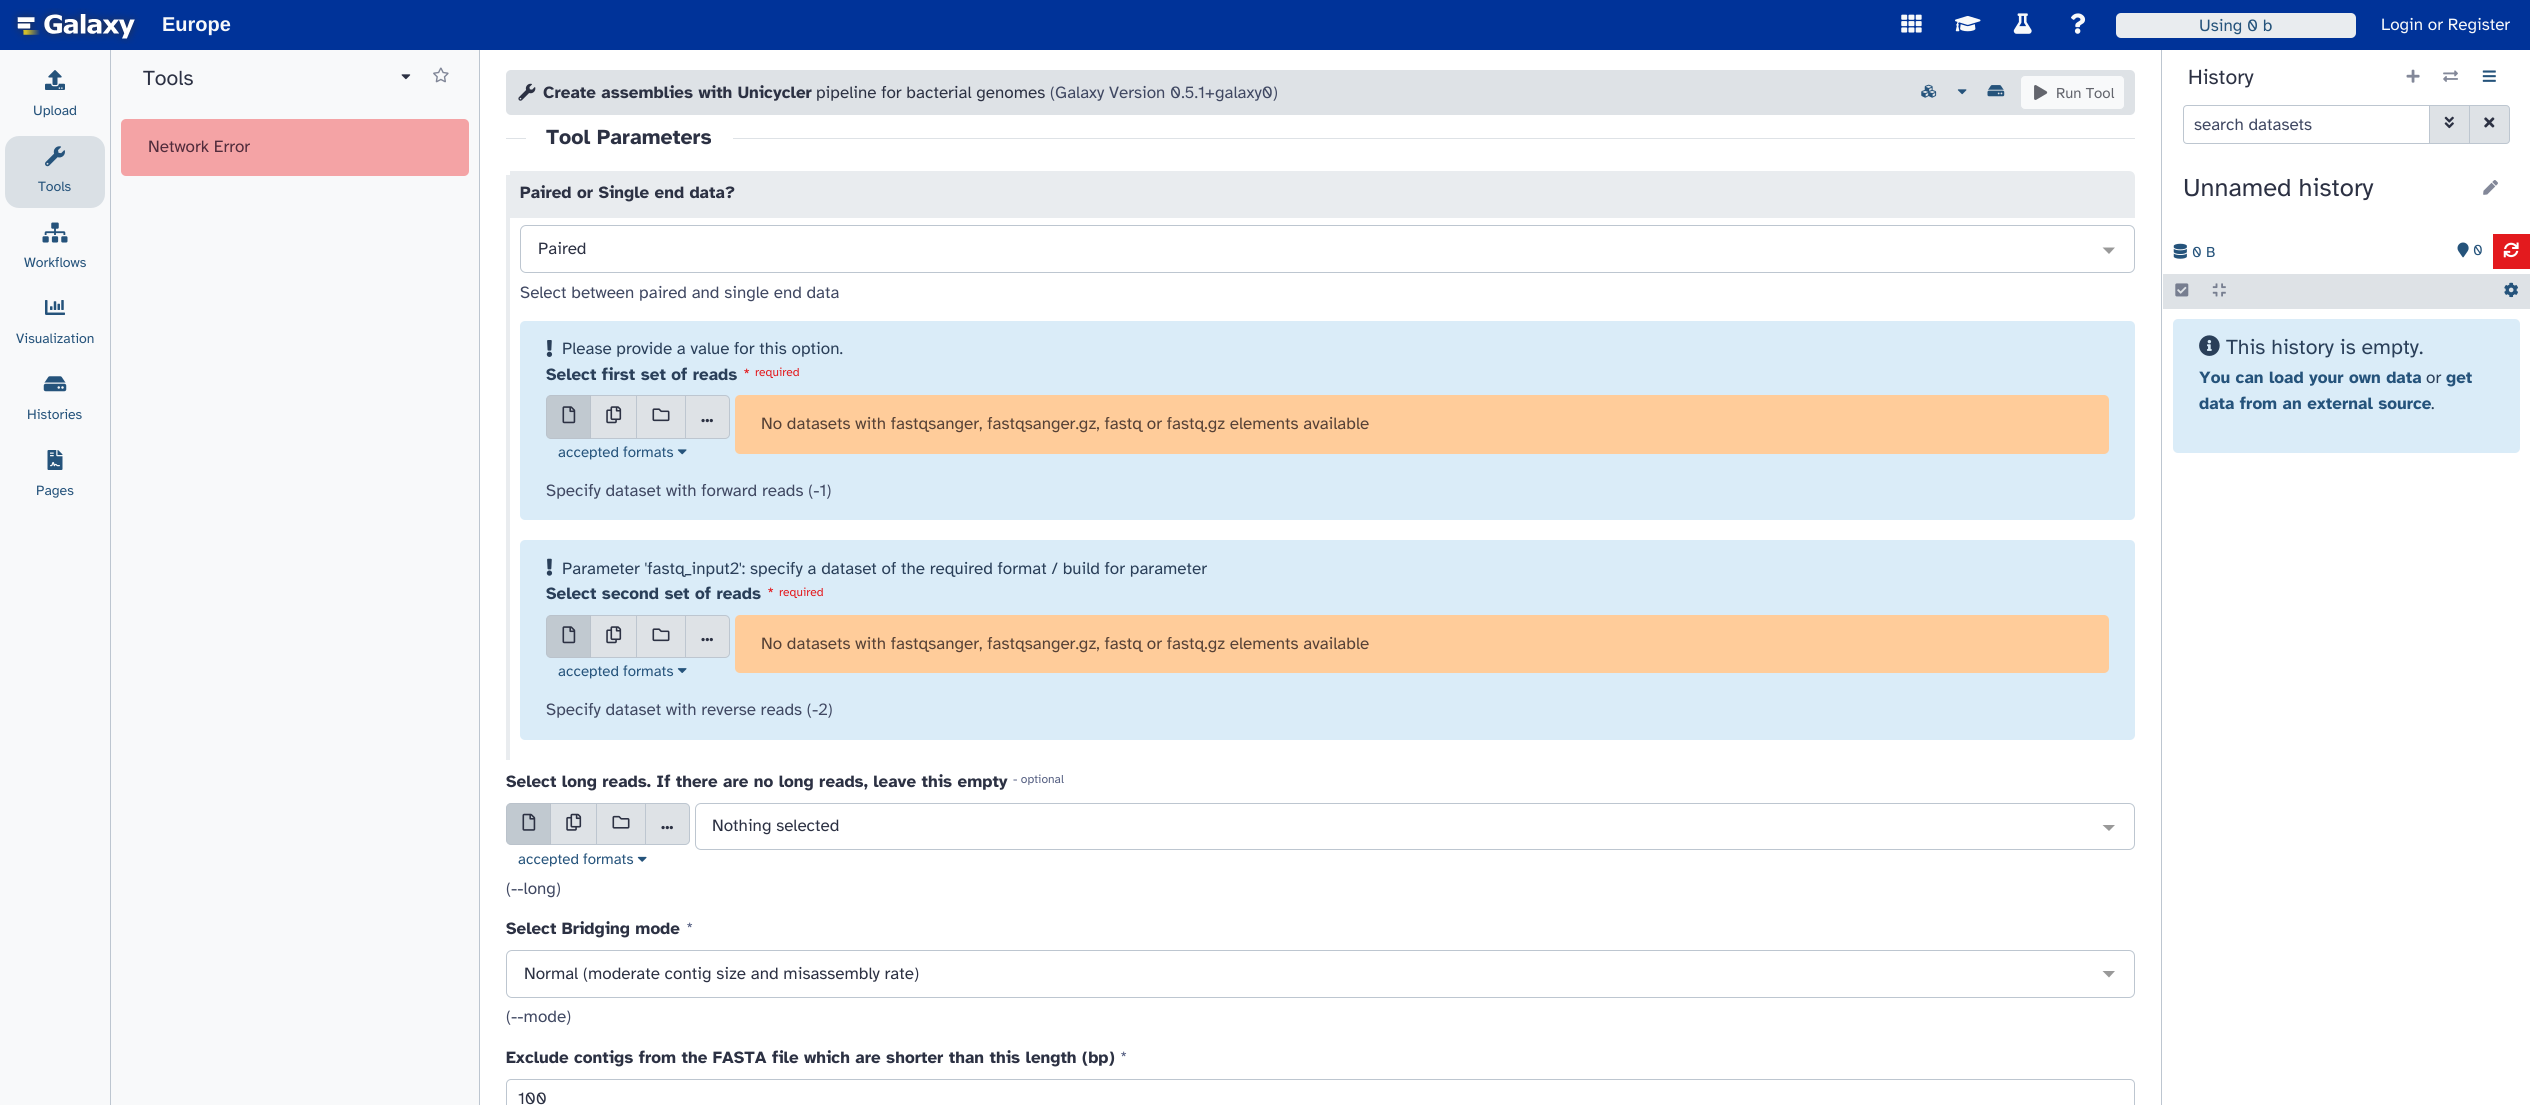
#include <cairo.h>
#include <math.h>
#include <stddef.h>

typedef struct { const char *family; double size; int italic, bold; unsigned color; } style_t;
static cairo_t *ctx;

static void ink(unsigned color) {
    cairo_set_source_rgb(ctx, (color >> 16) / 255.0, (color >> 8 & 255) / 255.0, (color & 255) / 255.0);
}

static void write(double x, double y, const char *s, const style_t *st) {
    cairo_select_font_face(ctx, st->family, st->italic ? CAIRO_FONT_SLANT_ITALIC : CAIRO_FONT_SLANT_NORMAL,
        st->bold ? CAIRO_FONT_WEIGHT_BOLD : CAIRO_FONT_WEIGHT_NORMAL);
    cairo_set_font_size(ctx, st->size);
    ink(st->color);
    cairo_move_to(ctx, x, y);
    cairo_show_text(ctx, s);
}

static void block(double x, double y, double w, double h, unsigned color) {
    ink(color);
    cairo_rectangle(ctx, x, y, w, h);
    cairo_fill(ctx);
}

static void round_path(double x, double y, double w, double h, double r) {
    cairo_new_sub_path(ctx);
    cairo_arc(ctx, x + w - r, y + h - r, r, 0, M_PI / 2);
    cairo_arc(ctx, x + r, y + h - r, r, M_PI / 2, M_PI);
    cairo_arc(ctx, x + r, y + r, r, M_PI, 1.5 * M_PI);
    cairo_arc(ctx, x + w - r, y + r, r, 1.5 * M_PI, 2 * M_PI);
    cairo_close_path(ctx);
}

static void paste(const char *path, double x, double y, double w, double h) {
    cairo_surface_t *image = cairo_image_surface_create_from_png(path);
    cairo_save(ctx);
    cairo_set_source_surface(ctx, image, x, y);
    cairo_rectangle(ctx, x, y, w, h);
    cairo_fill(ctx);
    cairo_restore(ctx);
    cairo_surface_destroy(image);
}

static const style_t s1 = {"Liberation Sans", 20, 0, 1, 0xf8f9fa};
static const style_t s2 = {"Atkinson Hyperlegible", 17, 0, 0, 0x25537b};
static const style_t s3 = {"Atkinson Hyperlegible", 17, 0, 0, 0xf8f9fa};
static const style_t s4 = {"Atkinson Hyperlegible", 14, 0, 0, 0x25537b};
static const style_t s5 = {"Atkinson Hyperlegible", 21.25, 0, 0, 0x2c3143};
static const style_t s6 = {"Atkinson Hyperlegible", 17, 0, 0, 0x512c3c};
static const style_t s7 = {"Atkinson Hyperlegible", 17, 0, 1, 0x2c3143};
static const style_t s8 = {"Atkinson Hyperlegible", 17, 0, 0, 0x2c3143};
static const style_t s9 = {"Atkinson Hyperlegible", 17, 0, 0, 0x404862};
static const style_t s10 = {"Atkinson Hyperlegible", 15, 0, 0, 0x63656d};
static const style_t s11 = {"Atkinson Hyperlegible", 21.25, 0, 1, 0x2c3143};
static const style_t s12 = {"Atkinson Hyperlegible", 17, 0, 0, 0x2a3f59};
static const style_t s13 = {"Atkinson Hyperlegible", 17, 0, 1, 0x2a3f59};
static const style_t s14 = {"Atkinson Hyperlegible", 17, 0, 0, 0xe31a1e};
static const style_t s15 = {"Atkinson Hyperlegible", 12, 0, 0, 0xe31a1e};
static const style_t s16 = {"Atkinson Hyperlegible", 15, 0, 0, 0x25537b};
static const style_t s17 = {"Atkinson Hyperlegible", 17, 0, 0, 0x564136};
static const style_t s18 = {"Atkinson Hyperlegible", 12, 0, 0, 0x545e81};
static const style_t s19 = {"Atkinson Hyperlegible", 17, 0, 0, 0x545e81};
static const style_t s20 = {"Atkinson Hyperlegible", 25.5, 0, 0, 0x2c3143};
static const style_t s21 = {"Atkinson Hyperlegible", 21.25, 0, 0, 0x2a3f59};
static const style_t s22 = {"Atkinson Hyperlegible", 17, 0, 1, 0x25537b};

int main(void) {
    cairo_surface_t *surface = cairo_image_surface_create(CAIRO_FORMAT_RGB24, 2530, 1105);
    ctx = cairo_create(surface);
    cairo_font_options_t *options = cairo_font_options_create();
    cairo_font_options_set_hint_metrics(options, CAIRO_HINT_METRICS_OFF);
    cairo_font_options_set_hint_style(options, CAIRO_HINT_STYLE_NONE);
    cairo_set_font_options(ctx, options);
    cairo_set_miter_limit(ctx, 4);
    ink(0xffffff);
    cairo_paint(ctx);
    block(0, 0, 2530, 50, 0x003399);
    paste("pic1.png", 11, 8, 129, 36);
    write(162, 31, "Europe", &s1);
    paste("pic2.png", 1901, 14, 21, 19);
    paste("pic3.png", 1955, 16, 26, 16);
    paste("pic4.png", 2013, 13, 19, 21);
    paste("pic5.png", 2071, 13, 15, 21);
    ink(0xe9ecef);
    round_path(2116, 13, 240, 25, 5);
    cairo_fill(ctx);
    write(2199, 31, "Using 0 b", &s2);
    write(2381, 30, "Login or Register", &s3);
    block(0, 50, 110, 1055, 0xf8f9fa);
    block(110, 50, 1, 1055, 0xbdc6d0);
    paste("pic6.png", 45, 70, 20, 20);
    write(33, 115, "Upload", &s4);
    ink(0xdae0e5);
    round_path(5, 136, 100, 72, 14);
    cairo_fill(ctx);
    paste("pic7.png", 45, 146, 20, 21);
    write(38, 191, "Tools", &s4);
    paste("pic8.png", 42, 222, 26, 21);
    write(24, 267, "Workflows", &s4);
    paste("pic9.png", 45, 300, 20, 15);
    write(16, 343, "Visualization", &s4);
    paste("pic10.png", 43, 376, 24, 16);
    write(27, 419, "Histories", &s4);
    paste("pic11.png", 47, 450, 16, 20);
    write(36, 495, "Pages", &s4);
    block(111, 50, 368, 1055, 0xf8f9fa);
    write(143, 85, "Tools", &s5);
    paste("pic12.png", 401, 74, 10, 6);
    paste("pic13.png", 433, 67, 16, 16);
    ink(0xf4a3a5);
    round_path(121, 119, 348, 57, 5);
    cairo_fill(ctx);
    write(148, 152, "Network Error", &s6);
    block(479, 50, 1, 1055, 0xbdc6d0);
    ink(0xdee2e6);
    round_path(506, 70, 1629, 45, 5);
    cairo_fill(ctx);
    paste("pic14.png", 518, 83, 18, 18);
    write(543, 98, "Create assemblies with Unicycler", &s7);
    write(816, 98, "pipeline for bacterial genomes", &s8);
    write(1050, 98, "(Galaxy Version 0.5.1+galaxy0)", &s9);
    paste("pic15.png", 1921, 84, 16, 14);
    paste("pic16.png", 1957, 89, 10, 6);
    paste("pic17.png", 1987, 85, 18, 12);
    ink(0xf8f9fa);
    round_path(2020.5, 75.5, 104, 34, 4.5);
    cairo_fill_preserve(ctx);
    ink(0xdee2e6);
    cairo_set_line_width(ctx, 1);
    cairo_stroke(ctx);
    paste("pic18.png", 2034, 85, 14, 15);
    write(2056, 98, "Run Tool", &s10);
    block(506, 138, 20, 1, 0xdee2e6);
    write(546, 144, "Tool Parameters", &s11);
    block(733, 138, 1402, 1, 0xdee2e6);
    block(506, 175, 4, 585, 0xe9ecef);
    cairo_new_path(ctx);
    cairo_move_to(ctx, 510, 171);
    cairo_line_to(ctx, 2129, 171);
    cairo_curve_to(ctx, 2132.5, 171, 2135, 173.5, 2135, 177);
    cairo_line_to(ctx, 2135, 218);
    cairo_line_to(ctx, 510, 218);
    cairo_close_path(ctx);
    cairo_fill(ctx);
    write(520, 198, "Paired or Single end data?", &s7);
    round_path(520.5, 225.5, 1614, 47, 5.5);
    ink(0xbdc6d0);
    cairo_stroke(ctx);
    write(538, 254, "Paired", &s8);
    ink(0x999999);
    cairo_new_path(ctx);
    cairo_move_to(ctx, 2102.5, 247.5);
    cairo_line_to(ctx, 2115, 247.5);
    cairo_line_to(ctx, 2109, 254);
    cairo_close_path(ctx);
    cairo_fill(ctx);
    write(520, 298, "Select between paired and single end data", &s9);
    ink(0xdaecf8);
    round_path(520, 321, 1615, 199, 5);
    cairo_fill(ctx);
    paste("pic19.png", 546, 340, 7, 17);
    write(562, 354, "Please provide a value for this option.", &s12);
    write(546, 380, "Select first set of reads", &s13);
    write(743, 380, "*", &s14);
    write(755, 376, "required", &s15);
    block(591, 396, 45, 42, 0xdee2e6);
    cairo_rectangle(ctx, 590.5, 395.5, 47, 43);
    ink(0xbdc6d0);
    cairo_stroke(ctx);
    ink(0xc1c9d0);
    cairo_new_path(ctx);
    cairo_move_to(ctx, 551, 395.5);
    cairo_line_to(ctx, 590.5, 395.5);
    cairo_line_to(ctx, 590.5, 438.5);
    cairo_line_to(ctx, 551, 438.5);
    cairo_curve_to(ctx, 548.5, 438.5, 546.5, 436.5, 546.5, 434);
    cairo_line_to(ctx, 546.5, 400);
    cairo_curve_to(ctx, 546.5, 397.5, 548.5, 395.5, 551, 395.5);
    cairo_close_path(ctx);
    cairo_fill_preserve(ctx);
    ink(0xbac2cb);
    cairo_stroke(ctx);
    paste("pic20.png", 562, 406, 14, 18);
    paste("pic21.png", 606, 406, 16, 18);
    ink(0xdee2e6);
    cairo_rectangle(ctx, 636.5, 395.5, 49, 43);
    cairo_fill_preserve(ctx);
    ink(0xbdc6d0);
    cairo_stroke(ctx);
    paste("pic22.png", 652, 408, 18, 14);
    ink(0xdee2e6);
    cairo_new_path(ctx);
    cairo_move_to(ctx, 685.5, 395.5);
    cairo_line_to(ctx, 725, 395.5);
    cairo_curve_to(ctx, 727.5, 395.5, 729.5, 397.5, 729.5, 400);
    cairo_line_to(ctx, 729.5, 434);
    cairo_curve_to(ctx, 729.5, 436.5, 727.5, 438.5, 725, 438.5);
    cairo_line_to(ctx, 685.5, 438.5);
    cairo_close_path(ctx);
    cairo_fill_preserve(ctx);
    ink(0xbdc6d0);
    cairo_stroke(ctx);
    write(701, 422, "...", &s7);
    write(558, 457, "accepted formats", &s16);
    paste("pic23.png", 677, 449, 10, 6);
    ink(0xffcc9a);
    round_path(735, 395, 1374, 59, 5);
    cairo_fill(ctx);
    write(761, 429, "No datasets with fastqsanger, fastqsanger.gz, fastq or fastq.gz elements available", &s17);
    write(546, 496, "Specify dataset with forward reads (-1)", &s9);
    ink(0xdaecf8);
    round_path(520, 540, 1615, 200, 5);
    cairo_fill(ctx);
    paste("pic24.png", 546, 558, 7, 18);
    write(562, 574, "Parameter 'fastq_input2': specify a dataset of the required format / build for parameter", &s12);
    write(546, 599, "Select second set of reads", &s13);
    write(767, 599, "*", &s14);
    write(779, 596, "required", &s15);
    block(591, 616, 45, 41, 0xdee2e6);
    cairo_rectangle(ctx, 590.5, 615.5, 47, 42);
    ink(0xbdc6d0);
    cairo_stroke(ctx);
    ink(0xc1c9d0);
    cairo_new_path(ctx);
    cairo_move_to(ctx, 551, 615.5);
    cairo_line_to(ctx, 590.5, 615.5);
    cairo_line_to(ctx, 590.5, 657.5);
    cairo_line_to(ctx, 551, 657.5);
    cairo_curve_to(ctx, 548.5, 657.5, 546.5, 655.5, 546.5, 653);
    cairo_line_to(ctx, 546.5, 620);
    cairo_curve_to(ctx, 546.5, 617.5, 548.5, 615.5, 551, 615.5);
    cairo_close_path(ctx);
    cairo_fill_preserve(ctx);
    ink(0xbac2cb);
    cairo_stroke(ctx);
    paste("pic20.png", 562, 626, 14, 18);
    paste("pic21.png", 606, 626, 16, 18);
    ink(0xdee2e6);
    cairo_rectangle(ctx, 636.5, 615.5, 49, 42);
    cairo_fill_preserve(ctx);
    ink(0xbdc6d0);
    cairo_stroke(ctx);
    paste("pic22.png", 652, 628, 18, 14);
    ink(0xdee2e6);
    cairo_new_path(ctx);
    cairo_move_to(ctx, 685.5, 615.5);
    cairo_line_to(ctx, 725, 615.5);
    cairo_curve_to(ctx, 727.5, 615.5, 729.5, 617.5, 729.5, 620);
    cairo_line_to(ctx, 729.5, 653);
    cairo_curve_to(ctx, 729.5, 655.5, 727.5, 657.5, 725, 657.5);
    cairo_line_to(ctx, 685.5, 657.5);
    cairo_close_path(ctx);
    cairo_fill_preserve(ctx);
    ink(0xbdc6d0);
    cairo_stroke(ctx);
    write(701, 641, "...", &s7);
    write(558, 676, "accepted formats", &s16);
    paste("pic25.png", 677, 668, 10, 5);
    ink(0xffcc9a);
    round_path(735, 615, 1374, 58, 5);
    cairo_fill(ctx);
    write(761, 649, "No datasets with fastqsanger, fastqsanger.gz, fastq or fastq.gz elements available", &s17);
    write(546, 715, "Specify dataset with reverse reads (-2)", &s9);
    write(506, 787, "Select long reads. If there are no long reads, leave this empty", &s7);
    write(1013, 783, "- optional", &s18);
    block(551, 804, 45, 40, 0xdee2e6);
    cairo_rectangle(ctx, 550.5, 803.5, 47, 41);
    ink(0xbdc6d0);
    cairo_stroke(ctx);
    ink(0xc1c9d0);
    cairo_new_path(ctx);
    cairo_move_to(ctx, 511, 803.5);
    cairo_line_to(ctx, 550.5, 803.5);
    cairo_line_to(ctx, 550.5, 844.5);
    cairo_line_to(ctx, 511, 844.5);
    cairo_curve_to(ctx, 508.5, 844.5, 506.5, 842.5, 506.5, 840);
    cairo_line_to(ctx, 506.5, 808);
    cairo_curve_to(ctx, 506.5, 805.5, 508.5, 803.5, 511, 803.5);
    cairo_close_path(ctx);
    cairo_fill_preserve(ctx);
    ink(0xbac2cb);
    cairo_stroke(ctx);
    paste("pic26.png", 522, 813, 14, 18);
    paste("pic27.png", 566, 813, 16, 18);
    ink(0xdee2e6);
    cairo_rectangle(ctx, 596.5, 803.5, 49, 41);
    cairo_fill_preserve(ctx);
    ink(0xbdc6d0);
    cairo_stroke(ctx);
    paste("pic28.png", 612, 815, 18, 14);
    ink(0xdee2e6);
    cairo_new_path(ctx);
    cairo_move_to(ctx, 645.5, 803.5);
    cairo_line_to(ctx, 685, 803.5);
    cairo_curve_to(ctx, 687.5, 803.5, 689.5, 805.5, 689.5, 808);
    cairo_line_to(ctx, 689.5, 840);
    cairo_curve_to(ctx, 689.5, 842.5, 687.5, 844.5, 685, 844.5);
    cairo_line_to(ctx, 645.5, 844.5);
    cairo_close_path(ctx);
    cairo_fill_preserve(ctx);
    ink(0xbdc6d0);
    cairo_stroke(ctx);
    write(661, 829, "...", &s7);
    write(518, 864, "accepted formats", &s16);
    paste("pic29.png", 637, 856, 10, 6);
    round_path(695.5, 803.5, 1439, 46, 5.5);
    ink(0xbdc6d0);
    cairo_stroke(ctx);
    write(712, 831, "Nothing selected", &s8);
    ink(0x999999);
    cairo_new_path(ctx);
    cairo_move_to(ctx, 2102.5, 825);
    cairo_line_to(ctx, 2115, 825);
    cairo_line_to(ctx, 2109, 831);
    cairo_close_path(ctx);
    cairo_fill(ctx);
    write(506, 894, "(--long)", &s9);
    write(506, 934, "Select Bridging mode", &s7);
    write(686, 934, "*", &s19);
    round_path(506.5, 950.5, 1628, 47, 5.5);
    ink(0xbdc6d0);
    cairo_stroke(ctx);
    write(524, 979, "Normal (moderate contig size and misassembly rate)", &s8);
    ink(0x999999);
    cairo_new_path(ctx);
    cairo_move_to(ctx, 2102.5, 971);
    cairo_line_to(ctx, 2115, 971);
    cairo_line_to(ctx, 2109, 977.5);
    cairo_close_path(ctx);
    cairo_fill(ctx);
    write(506, 1022, "(--mode)", &s9);
    write(506, 1063, "Exclude contigs from the FASTA file which are shorter than this length (bp)", &s7);
    write(1120, 1063, "*", &s19);
    round_path(506.5, 1079.5, 1628, 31, 4.5);
    ink(0xbdc6d0);
    cairo_stroke(ctx);
    write(518, 1104, "100", &s8);
    block(2161, 50, 1, 1055, 0xbdc6d0);
    write(2188, 84, "History", &s5);
    paste("pic30.png", 2406, 69, 14, 14);
    paste("pic31.png", 2443, 70, 15, 12);
    paste("pic32.png", 2482, 70, 14, 12);
    cairo_new_path(ctx);
    cairo_move_to(ctx, 2187, 105.5);
    cairo_line_to(ctx, 2429.5, 105.5);
    cairo_line_to(ctx, 2429.5, 143.5);
    cairo_line_to(ctx, 2187, 143.5);
    cairo_curve_to(ctx, 2185, 143.5, 2183.5, 142, 2183.5, 140);
    cairo_line_to(ctx, 2183.5, 109);
    cairo_curve_to(ctx, 2183.5, 107, 2185, 105.5, 2187, 105.5);
    cairo_close_path(ctx);
    ink(0xbdc6d0);
    cairo_stroke(ctx);
    write(2194, 130, "search datasets", &s9);
    ink(0xdee2e6);
    cairo_rectangle(ctx, 2429.5, 105.5, 40, 38);
    cairo_fill_preserve(ctx);
    ink(0xbdc6d0);
    cairo_stroke(ctx);
    paste("pic33.png", 2444, 116, 10, 13);
    ink(0xdee2e6);
    cairo_new_path(ctx);
    cairo_move_to(ctx, 2469.5, 105.5);
    cairo_line_to(ctx, 2506, 105.5);
    cairo_curve_to(ctx, 2508, 105.5, 2509.5, 107, 2509.5, 109);
    cairo_line_to(ctx, 2509.5, 140);
    cairo_curve_to(ctx, 2509.5, 142, 2508, 143.5, 2506, 143.5);
    cairo_line_to(ctx, 2469.5, 143.5);
    cairo_close_path(ctx);
    cairo_fill_preserve(ctx);
    ink(0xbdc6d0);
    cairo_stroke(ctx);
    paste("pic34.png", 2484, 117, 11, 11);
    write(2183, 196, "Unnamed history", &s20);
    paste("pic35.png", 2483, 180, 15, 15);
    paste("pic36.png", 2173, 243, 14, 16);
    write(2192, 257, "0 B", &s16);
    paste("pic37.png", 2457, 242, 12, 16);
    write(2473, 255, "0", &s16);
    block(2493, 234, 37, 35, 0xe31a1e);
    paste("pic38.png", 2503, 242, 16, 16);
    block(2163, 274, 367, 35, 0xdee2e6);
    paste("pic39.png", 2175, 283, 14, 14);
    paste("pic40.png", 2212, 283, 14, 14);
    paste("pic41.png", 2504, 282, 14, 16);
    ink(0xdaecf8);
    round_path(2173, 319, 347, 134, 5);
    cairo_fill(ctx);
    paste("pic42.png", 2199, 335, 21, 21);
    write(2226, 354, "This history is empty.", &s21);
    write(2199, 383, "You can load your own data", &s22);
    write(2426, 383, "or", &s12);
    write(2446, 383, "get", &s22);
    write(2199, 409, "data from an external source", &s22);
    write(2431, 409, ".", &s12);
    cairo_surface_write_to_png(surface, "screenshot.png");
    cairo_font_options_destroy(options);
    cairo_destroy(ctx);
    cairo_surface_destroy(surface);
    return 0;
}
